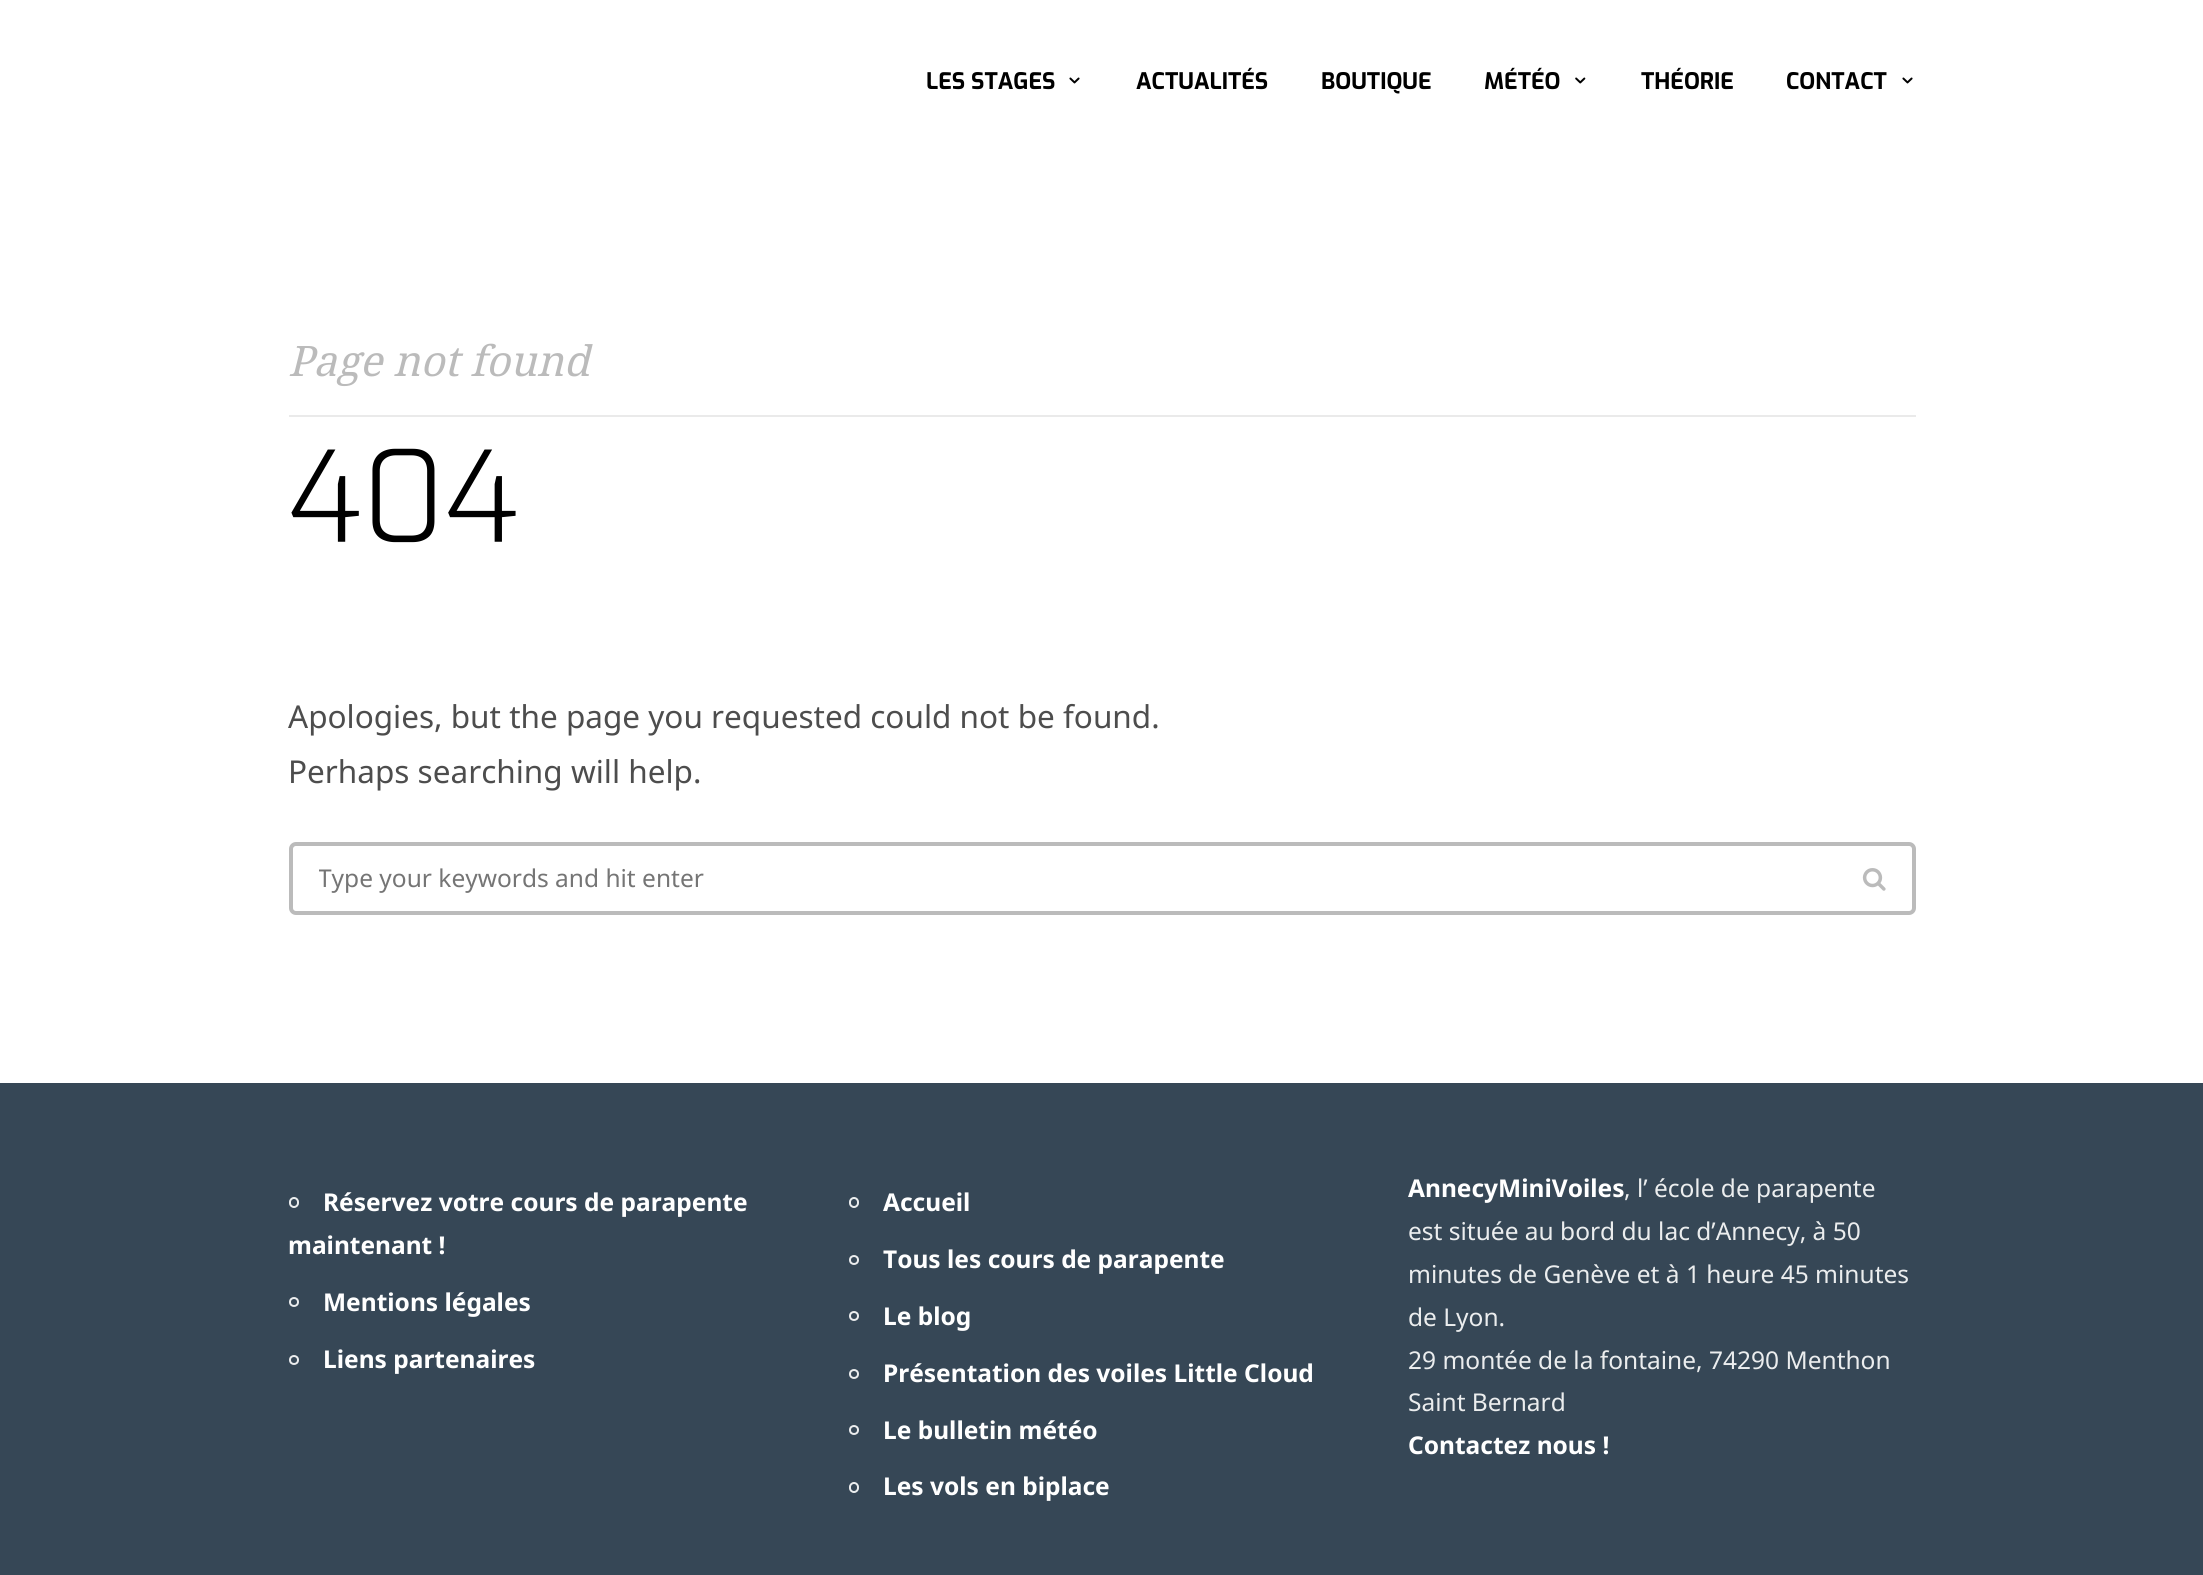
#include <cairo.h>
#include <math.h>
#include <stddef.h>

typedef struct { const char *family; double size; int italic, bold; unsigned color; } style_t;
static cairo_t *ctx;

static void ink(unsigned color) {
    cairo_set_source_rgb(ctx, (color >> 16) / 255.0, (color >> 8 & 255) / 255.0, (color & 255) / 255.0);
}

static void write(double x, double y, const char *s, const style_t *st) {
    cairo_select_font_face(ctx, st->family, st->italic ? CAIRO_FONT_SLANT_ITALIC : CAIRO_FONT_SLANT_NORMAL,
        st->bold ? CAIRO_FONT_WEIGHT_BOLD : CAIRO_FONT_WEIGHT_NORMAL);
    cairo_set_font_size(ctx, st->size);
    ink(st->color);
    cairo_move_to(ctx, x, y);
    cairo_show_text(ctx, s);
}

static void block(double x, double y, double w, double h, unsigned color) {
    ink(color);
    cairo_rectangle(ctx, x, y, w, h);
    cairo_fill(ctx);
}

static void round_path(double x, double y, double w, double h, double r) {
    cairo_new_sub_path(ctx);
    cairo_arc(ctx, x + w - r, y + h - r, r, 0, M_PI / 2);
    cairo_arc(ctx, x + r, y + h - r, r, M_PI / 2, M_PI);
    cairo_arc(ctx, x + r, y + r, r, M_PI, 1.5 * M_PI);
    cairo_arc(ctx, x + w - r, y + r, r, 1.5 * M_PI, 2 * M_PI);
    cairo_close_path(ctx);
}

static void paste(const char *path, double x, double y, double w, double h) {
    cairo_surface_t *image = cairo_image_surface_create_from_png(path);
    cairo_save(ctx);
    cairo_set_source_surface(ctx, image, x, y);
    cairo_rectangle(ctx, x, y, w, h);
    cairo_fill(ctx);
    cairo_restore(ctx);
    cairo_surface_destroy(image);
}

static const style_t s1 = {"Exo", 22.75, 0, 1, 0x000000};
static const style_t s2 = {"Noto Serif", 42, 1, 0, 0xbbbbbb};
static const style_t s3 = {"Exo Light", 126, 0, 0, 0x000000};
static const style_t s4 = {"Noto Sans", 31.5, 0, 0, 0x4d4d4d};
static const style_t s5 = {"Noto Sans", 24.5, 0, 0, 0x757575};
static const style_t s6 = {"Noto Sans", 24.5, 0, 1, 0xffffff};
static const style_t s7 = {"Noto Sans", 24.5, 0, 0, 0xebedee};

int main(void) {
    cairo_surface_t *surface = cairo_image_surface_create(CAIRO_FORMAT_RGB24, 2203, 1575);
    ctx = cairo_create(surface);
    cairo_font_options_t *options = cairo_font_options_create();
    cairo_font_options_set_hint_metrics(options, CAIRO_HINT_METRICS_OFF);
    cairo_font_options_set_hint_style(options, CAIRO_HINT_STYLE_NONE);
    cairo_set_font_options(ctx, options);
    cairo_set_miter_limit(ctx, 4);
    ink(0xffffff);
    cairo_paint(ctx);
    write(926, 89, "LES STAGES", &s1);
    paste("pic1.png", 1069, 77, 11, 7);
    write(1136, 89, "ACTUALITÉS", &s1);
    write(1321, 89, "BOUTIQUE", &s1);
    write(1484, 89, "MÉTÉO", &s1);
    paste("pic2.png", 1575, 77, 11, 7);
    write(1641, 89, "THÉORIE", &s1);
    write(1786, 89, "CONTACT", &s1);
    paste("pic1.png", 1902, 77, 11, 7);
    block(289, 415, 1627, 2, 0xeaeaea);
    write(288, 376, "Page not found", &s2);
    write(288, 542, "404", &s3);
    write(288, 728, "Apologies, but the page you requested could not be found.", &s4);
    write(288, 783, "Perhaps searching will help.", &s4);
    round_path(291, 844, 1623, 69, 5);
    ink(0xbbbbbb);
    cairo_set_line_width(ctx, 4);
    cairo_stroke(ctx);
    cairo_save(ctx);
    cairo_rectangle(ctx, 319, 861, 1526, 33);
    cairo_clip(ctx);
    write(318, 887, "Type your keywords and hit enter", &s5);
    cairo_restore(ctx);
    paste("pic3.png", 1862, 868, 24, 23);
    block(0, 1083, 2203, 492, 0x364756);
    round_path(290, 1198, 8, 9, 4);
    ink(0xebedee);
    cairo_set_line_width(ctx, 2);
    cairo_stroke(ctx);
    write(323, 1211, "Réservez votre cours de parapente", &s6);
    write(288, 1254, "maintenant !", &s6);
    cairo_new_path(ctx);
    cairo_arc(ctx, 294, 1302, 4, 0, 2 * M_PI);
    ink(0xebedee);
    cairo_stroke(ctx);
    write(323, 1311, "Mentions légales", &s6);
    cairo_new_path(ctx);
    cairo_arc(ctx, 294, 1360, 4, 0, 2 * M_PI);
    ink(0xebedee);
    cairo_stroke(ctx);
    write(323, 1368, "Liens partenaires", &s6);
    round_path(850, 1198, 8, 9, 4);
    ink(0xebedee);
    cairo_stroke(ctx);
    write(883, 1211, "Accueil", &s6);
    cairo_new_path(ctx);
    cairo_arc(ctx, 854, 1260, 4, 0, 2 * M_PI);
    ink(0xebedee);
    cairo_stroke(ctx);
    write(883, 1268, "Tous les cours de parapente", &s6);
    cairo_new_path(ctx);
    cairo_arc(ctx, 854, 1316, 4, 0, 2 * M_PI);
    ink(0xebedee);
    cairo_stroke(ctx);
    write(883, 1325, "Le blog", &s6);
    cairo_new_path(ctx);
    cairo_arc(ctx, 854, 1374, 4, 0, 2 * M_PI);
    ink(0xebedee);
    cairo_stroke(ctx);
    write(883, 1382, "Présentation des voiles Little Cloud", &s6);
    cairo_new_path(ctx);
    cairo_arc(ctx, 854, 1430, 4, 0, 2 * M_PI);
    ink(0xebedee);
    cairo_stroke(ctx);
    write(883, 1439, "Le bulletin météo", &s6);
    round_path(850, 1483, 8, 9, 4);
    ink(0xebedee);
    cairo_stroke(ctx);
    write(883, 1495, "Les vols en biplace", &s6);
    write(1408, 1197, "AnnecyMiniVoiles", &s6);
    write(1624, 1197, ", l’ école de parapente", &s7);
    write(1408, 1240, "est située au bord du lac d’Annecy, à 50", &s7);
    write(1408, 1283, "minutes de Genève et à 1 heure 45 minutes", &s7);
    write(1408, 1326, "de Lyon.", &s7);
    write(1408, 1369, "29 montée de la fontaine, 74290 Menthon", &s7);
    write(1408, 1411, "Saint Bernard", &s7);
    write(1408, 1454, "Contactez nous !", &s6);
    cairo_surface_write_to_png(surface, "screenshot.png");
    cairo_font_options_destroy(options);
    cairo_destroy(ctx);
    cairo_surface_destroy(surface);
    return 0;
}
